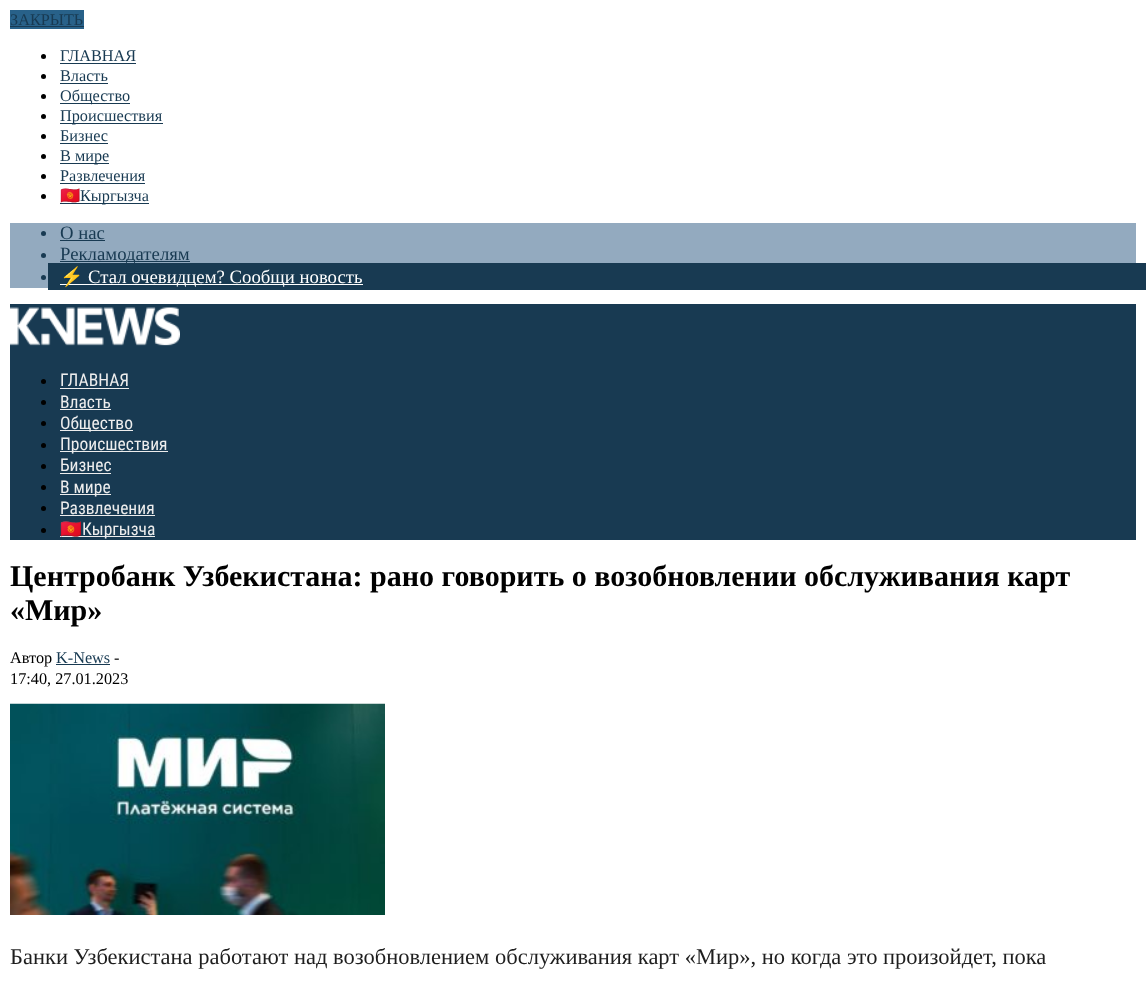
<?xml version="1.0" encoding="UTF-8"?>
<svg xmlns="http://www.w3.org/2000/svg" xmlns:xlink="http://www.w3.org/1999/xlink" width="1146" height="982">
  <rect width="100%" height="100%" fill="#ffffff" />
  <rect x="10" y="10" width="74" height="19" fill="#286189" />
  <rect x="10" y="26" width="74" height="1" fill="#183a52" />
  <circle cx="43.5" cy="56.5" r="2.5" fill="#000000" />
  <rect x="60" y="63" width="76" height="1" fill="#183a52" />
  <circle cx="43.5" cy="76.5" r="2.5" fill="#000000" />
  <rect x="60" y="83" width="48" height="1" fill="#183a52" />
  <circle cx="43.5" cy="96.5" r="2.5" fill="#000000" />
  <rect x="60" y="103" width="70" height="1" fill="#183a52" />
  <circle cx="43.5" cy="116.5" r="2.5" fill="#000000" />
  <rect x="60" y="123" width="103" height="1" fill="#183a52" />
  <circle cx="43.5" cy="136.5" r="2.5" fill="#000000" />
  <rect x="60" y="143" width="48" height="1" fill="#183a52" />
  <circle cx="43.5" cy="156.5" r="2.5" fill="#000000" />
  <rect x="60" y="163" width="49" height="1" fill="#183a52" />
  <circle cx="43.5" cy="176.5" r="2.5" fill="#000000" />
  <rect x="60" y="183" width="85" height="1" fill="#183a52" />
  <circle cx="43.5" cy="196.5" r="2.5" fill="#000000" />
  <rect x="60" y="203" width="89" height="1" fill="#183a52" />
  <rect x="10" y="223" width="1126" height="65" fill="#93aabf" />
  <circle cx="43.5" cy="233.5" r="2.5" fill="#183a52" />
  <rect x="60" y="240" width="45" height="1" fill="#183a52" />
  <circle cx="43.5" cy="255.5" r="2.5" fill="#183a52" />
  <rect x="60" y="261" width="130" height="1" fill="#183a52" />
  <rect x="48" y="263" width="1098" height="27" fill="#183a52" />
  <circle cx="43.5" cy="277.5" r="2.5" fill="#183a52" />
  <rect x="60" y="284" width="303" height="1" fill="#ffffff" />
  <rect x="10" y="304" width="1126" height="236" fill="#183a52" />
  <image x="10" y="307" width="170" height="39" xlink:href="image1.png" />
  <circle cx="43.5" cy="381.5" r="2.5" fill="#000000" />
  <rect x="60" y="388" width="69" height="1" fill="#ededed" />
  <circle cx="43.5" cy="402.5" r="2.5" fill="#000000" />
  <rect x="60" y="409" width="51" height="1" fill="#ededed" />
  <circle cx="43.5" cy="423.5" r="2.5" fill="#000000" />
  <rect x="60" y="430" width="73" height="1" fill="#ededed" />
  <circle cx="43.5" cy="445.5" r="2.5" fill="#000000" />
  <rect x="60" y="451" width="108" height="1" fill="#ededed" />
  <circle cx="43.5" cy="466.5" r="2.5" fill="#000000" />
  <rect x="60" y="473" width="51" height="1" fill="#ededed" />
  <circle cx="43.5" cy="487.5" r="2.5" fill="#000000" />
  <rect x="60" y="494" width="51" height="1" fill="#ededed" />
  <circle cx="43.5" cy="508.5" r="2.5" fill="#000000" />
  <rect x="60" y="515" width="95" height="1" fill="#ededed" />
  <circle cx="43.5" cy="530.5" r="2.5" fill="#000000" />
  <rect x="60" y="536" width="95" height="1" fill="#ededed" />
  <rect x="56" y="664" width="54" height="1" fill="#183a52" />
  <image x="10" y="703" width="375" height="212" xlink:href="image2.png" />
  <text x="10" y="25" style="font-family: Liberation Serif; font-size: 16.25px; fill: #183a52">ЗАКРЫТЬ</text>
  <text x="60" y="61" style="font-family: Liberation Serif; font-size: 16.25px; fill: #183a52">ГЛАВНАЯ</text>
  <text x="60" y="81" style="font-family: Liberation Serif; font-size: 16.25px; fill: #183a52">Bласть</text>
  <text x="60" y="101" style="font-family: Liberation Serif; font-size: 16.25px; fill: #183a52">Общество</text>
  <text x="60" y="121" style="font-family: Liberation Serif; font-size: 16.25px; fill: #183a52">Происшествия</text>
  <text x="60" y="141" style="font-family: Liberation Serif; font-size: 16.25px; fill: #183a52">Бизнес</text>
  <text x="60" y="161" style="font-family: Liberation Serif; font-size: 16.25px; fill: #183a52">В мире</text>
  <text x="60" y="181" style="font-family: Liberation Serif; font-size: 16.25px; fill: #183a52">Развлечения</text>
  <text x="60" y="201" style="font-family: Noto Color Emoji; font-size: 16.25px; fill: #183a52">🇰🇬</text>
  <text x="80" y="201" style="font-family: Liberation Serif; font-size: 16.25px; fill: #183a52">Кыргызча</text>
  <text x="60" y="239" style="font-family: Liberation Serif; font-size: 18.75px; fill: #183a52">О нас</text>
  <text x="60" y="260" style="font-family: Liberation Serif; font-size: 18.75px; fill: #183a52">Рекламодателям</text>
  <text x="60" y="283" style="font-family: Noto Color Emoji; font-size: 18.75px; fill: #ffffff">⚡</text>
  <text x="88" y="283" style="font-family: Liberation Serif; font-size: 18.75px; fill: #ffffff">Стал очевидцем? Сообщи новость</text>
  <text x="60" y="386" style="font-family: Roboto Condensed; font-size: 17.5px; fill: #ededed">ГЛАВНАЯ</text>
  <text x="60" y="408" style="font-family: Roboto Condensed; font-size: 17.5px; fill: #ededed">Bласть</text>
  <text x="60" y="429" style="font-family: Roboto Condensed; font-size: 17.5px; fill: #ededed">Общество</text>
  <text x="60" y="450" style="font-family: Roboto Condensed; font-size: 17.5px; fill: #ededed">Происшествия</text>
  <text x="60" y="471" style="font-family: Roboto Condensed; font-size: 17.5px; fill: #ededed">Бизнес</text>
  <text x="60" y="493" style="font-family: Roboto Condensed; font-size: 17.5px; fill: #ededed">В мире</text>
  <text x="60" y="514" style="font-family: Roboto Condensed; font-size: 17.5px; fill: #ededed">Развлечения</text>
  <text x="60" y="535" style="font-family: Noto Color Emoji; font-size: 17.5px; fill: #ededed">🇰🇬</text>
  <text x="82" y="535" style="font-family: Roboto Condensed; font-size: 17.5px; fill: #ededed">Кыргызча</text>
  <text x="10" y="586" style="font-family: Liberation Serif; font-size: 30px; font-weight: bold; fill: #000000">Центробанк Узбекистана: рано говорить о возобновлении обслуживания карт</text>
  <text x="10" y="620" style="font-family: Liberation Serif; font-size: 30px; font-weight: bold; fill: #000000">«Мир»</text>
  <text x="10" y="663" style="font-family: Liberation Serif; font-size: 16.25px; fill: #000000">Автор</text>
  <text x="56" y="663" style="font-family: Liberation Serif; font-size: 16.25px; fill: #183a52">K-News</text>
  <text x="114" y="663" style="font-family: Liberation Serif; font-size: 16.25px; fill: #000000">-</text>
  <text x="10" y="684" style="font-family: Liberation Serif; font-size: 16.25px; fill: #000000">17:40, 27.01.2023</text>
  <text x="10" y="964" style="font-family: Liberation Serif; font-size: 22.5px; fill: #1e1e1e">Банки Узбекистана работают над возобновлением обслуживания карт «Мир», но когда это произойдет, пока</text>
</svg>
